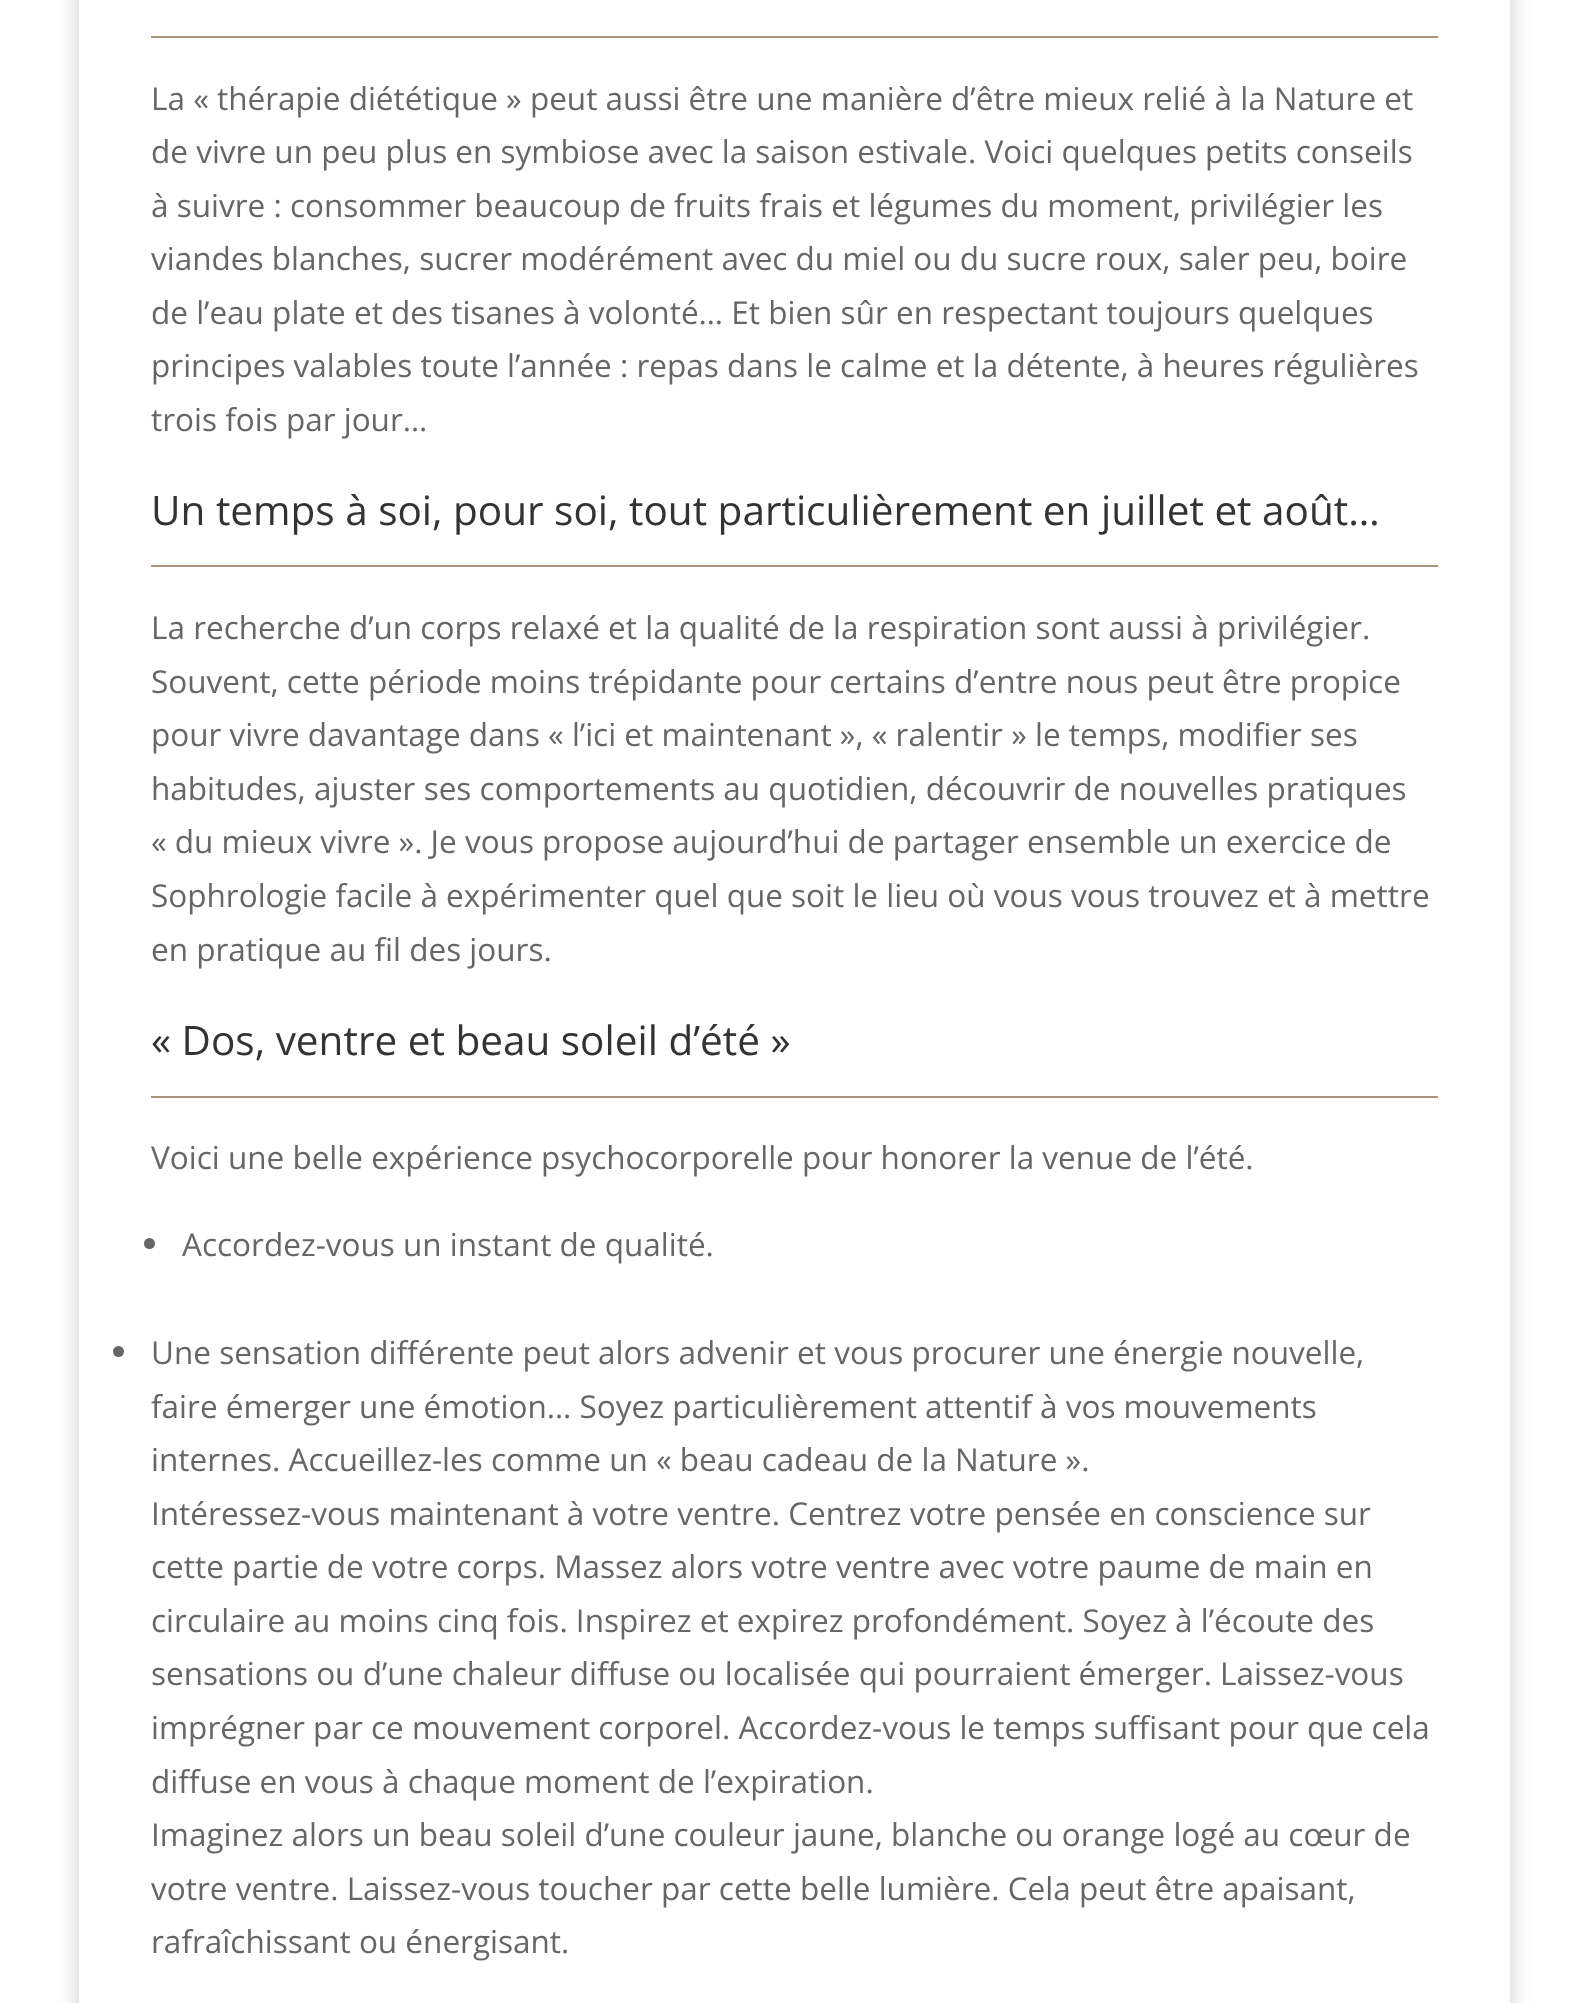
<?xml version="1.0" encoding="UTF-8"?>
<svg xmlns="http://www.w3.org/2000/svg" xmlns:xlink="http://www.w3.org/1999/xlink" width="1588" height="2003">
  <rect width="100%" height="100%" fill="#ffffff" />
  <rect x="79" y="-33" width="1431" height="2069" fill="#000000" fill-opacity="0.2" filter="blur(11px)" />
  <rect x="79" width="1431" height="2003" fill="#ffffff" />
  <rect x="151" y="36" width="1287" height="2" fill="#ab9279" />
  <rect x="151" y="565" width="1287" height="2" fill="#ab9279" />
  <rect x="151" y="1096" width="1287" height="2" fill="#ab9279" />
  <circle cx="149.5" cy="1243.5" r="5.5" fill="#666666" />
  <circle cx="118.5" cy="1351.5" r="5.5" fill="#666666" />
  <text x="151" y="110" style="font-family: Open Sans; font-size: 31.5px; fill: #666666">La « thérapie diététique » peut aussi être une manière d’être mieux relié à la Nature et</text>
  <text x="151" y="163" style="font-family: Open Sans; font-size: 31.5px; fill: #666666">de vivre un peu plus en symbiose avec la saison estivale. Voici quelques petits conseils</text>
  <text x="151" y="217" style="font-family: Open Sans; font-size: 31.5px; fill: #666666">à suivre : consommer beaucoup de fruits frais et légumes du moment, privilégier les</text>
  <text x="151" y="270" style="font-family: Open Sans; font-size: 31.5px; fill: #666666">viandes blanches, sucrer modérément avec du miel ou du sucre roux, saler peu, boire</text>
  <text x="151" y="324" style="font-family: Open Sans; font-size: 31.5px; fill: #666666">de l’eau plate et des tisanes à volonté… Et bien sûr en respectant toujours quelques</text>
  <text x="151" y="377" style="font-family: Open Sans; font-size: 31.5px; fill: #666666">principes valables toute l’année : repas dans le calme et la détente, à heures régulières</text>
  <text x="151" y="431" style="font-family: Open Sans; font-size: 31.5px; fill: #666666">trois fois par jour…</text>
  <text x="151" y="525" style="font-family: Open Sans; font-size: 40.5px; fill: #333333">Un temps à soi, pour soi, tout particulièrement en juillet et août…</text>
  <text x="151" y="639" style="font-family: Open Sans; font-size: 31.5px; fill: #666666">La recherche d’un corps relaxé et la qualité de la respiration sont aussi à privilégier.</text>
  <text x="151" y="693" style="font-family: Open Sans; font-size: 31.5px; fill: #666666">Souvent, cette période moins trépidante pour certains d’entre nous peut être propice</text>
  <text x="151" y="746" style="font-family: Open Sans; font-size: 31.5px; fill: #666666">pour vivre davantage dans « l’ici et maintenant », « ralentir » le temps, modifier ses</text>
  <text x="151" y="800" style="font-family: Open Sans; font-size: 31.5px; fill: #666666">habitudes, ajuster ses comportements au quotidien, découvrir de nouvelles pratiques</text>
  <text x="151" y="853" style="font-family: Open Sans; font-size: 31.5px; fill: #666666">« du mieux vivre ». Je vous propose aujourd’hui de partager ensemble un exercice de</text>
  <text x="151" y="907" style="font-family: Open Sans; font-size: 31.5px; fill: #666666">Sophrologie facile à expérimenter quel que soit le lieu où vous vous trouvez et à mettre</text>
  <text x="151" y="961" style="font-family: Open Sans; font-size: 31.5px; fill: #666666">en pratique au fil des jours.</text>
  <text x="151" y="1055" style="font-family: Open Sans; font-size: 40.5px; fill: #333333">« Dos, ventre et beau soleil d’été »</text>
  <text x="151" y="1169" style="font-family: Open Sans; font-size: 31.5px; fill: #666666">Voici une belle expérience psychocorporelle pour honorer la venue de l’été.</text>
  <text x="182" y="1256" style="font-family: Open Sans; font-size: 31.5px; fill: #666666">Accordez-vous un instant de qualité.</text>
  <text x="151" y="1364" style="font-family: Open Sans; font-size: 31.5px; fill: #666666">Une sensation différente peut alors advenir et vous procurer une énergie nouvelle,</text>
  <text x="151" y="1418" style="font-family: Open Sans; font-size: 31.5px; fill: #666666">faire émerger une émotion… Soyez particulièrement attentif à vos mouvements</text>
  <text x="151" y="1471" style="font-family: Open Sans; font-size: 31.5px; fill: #666666">internes. Accueillez-les comme un « beau cadeau de la Nature ».</text>
  <text x="151" y="1525" style="font-family: Open Sans; font-size: 31.5px; fill: #666666">Intéressez-vous maintenant à votre ventre. Centrez votre pensée en conscience sur</text>
  <text x="151" y="1578" style="font-family: Open Sans; font-size: 31.5px; fill: #666666">cette partie de votre corps. Massez alors votre ventre avec votre paume de main en</text>
  <text x="151" y="1632" style="font-family: Open Sans; font-size: 31.5px; fill: #666666">circulaire au moins cinq fois. Inspirez et expirez profondément. Soyez à l’écoute des</text>
  <text x="151" y="1685" style="font-family: Open Sans; font-size: 31.5px; fill: #666666">sensations ou d’une chaleur diffuse ou localisée qui pourraient émerger. Laissez-vous</text>
  <text x="151" y="1739" style="font-family: Open Sans; font-size: 31.5px; fill: #666666">imprégner par ce mouvement corporel. Accordez-vous le temps suffisant pour que cela</text>
  <text x="151" y="1793" style="font-family: Open Sans; font-size: 31.5px; fill: #666666">diffuse en vous à chaque moment de l’expiration.</text>
  <text x="151" y="1846" style="font-family: Open Sans; font-size: 31.5px; fill: #666666">Imaginez alors un beau soleil d’une couleur jaune, blanche ou orange logé au cœur de</text>
  <text x="151" y="1900" style="font-family: Open Sans; font-size: 31.5px; fill: #666666">votre ventre. Laissez-vous toucher par cette belle lumière. Cela peut être apaisant,</text>
  <text x="151" y="1953" style="font-family: Open Sans; font-size: 31.5px; fill: #666666">rafraîchissant ou énergisant.</text>
</svg>
